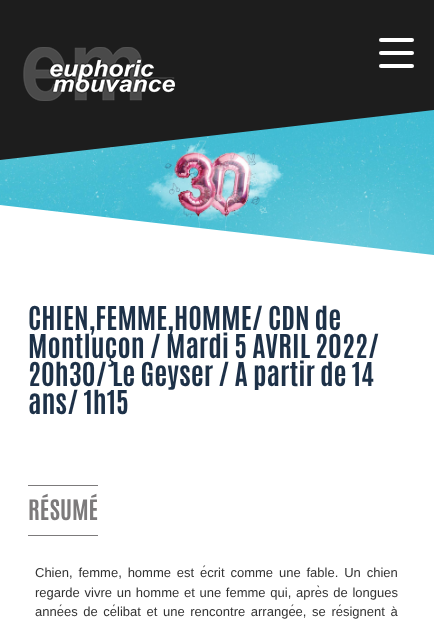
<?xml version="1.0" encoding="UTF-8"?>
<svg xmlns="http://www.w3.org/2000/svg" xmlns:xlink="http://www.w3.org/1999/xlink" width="434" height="633">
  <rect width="100%" height="100%" fill="#ffffff" />
  <rect width="434" height="110" fill="#1d1d1d" />
  <image x="23" y="47" width="152" height="54" xlink:href="image1.png" />
  <rect x="379" y="38" width="35" height="4" rx="2" fill="#ffffff" />
  <rect x="379" y="51" width="35" height="4" rx="2" fill="#ffffff" />
  <rect x="379" y="64" width="35" height="4" rx="2" fill="#ffffff" />
  <image x="0" y="110" width="434" height="145" xlink:href="image2.png" />
  <path d="M 0 160 v -50 h 434 z" fill="#1d1d1d" />
  <path d="M 0 255 v -50 l 434 50 z" fill="#ffffff" />
  <rect x="28" y="485" width="70" height="1" fill="#7c7a7b" />
  <rect x="28" y="535" width="70" height="1" fill="#7c7a7b" />
  <text x="28" y="330" style="font-family: Antonio; font-size: 28px; font-weight: bold; fill: #1d3148">CHIEN,FEMME,HOMME/ CDN de</text>
  <text x="28" y="358" style="font-family: Antonio; font-size: 28px; font-weight: bold; fill: #1d3148">Montluçon / Mardi 5 AVRIL 2022/</text>
  <text x="28" y="386" style="font-family: Antonio; font-size: 28px; font-weight: bold; fill: #1d3148">20h30/ Le Geyser / A partir de 14</text>
  <text x="28" y="414" style="font-family: Antonio; font-size: 28px; font-weight: bold; fill: #1d3148">ans/ 1h15</text>
  <text x="28" y="520" style="font-family: Antonio; font-size: 24px; font-weight: bold; fill: #7c7a7b">RÉSUMÉ</text>
  <text x="35" y="577" word-spacing="2.25" style="font-family: Liberation Sans; font-size: 13px; fill: #333333">Chien, femme, homme est écrit comme une fable. Un chien</text>
  <text x="35" y="597" word-spacing="1.1" style="font-family: Liberation Sans; font-size: 13px; fill: #333333">regarde vivre un homme et une femme qui, après de longues</text>
  <text x="35" y="616" word-spacing="2" style="font-family: Liberation Sans; font-size: 13px; fill: #333333">années de célibat et une rencontre arrangée, se résignent à</text>
</svg>
